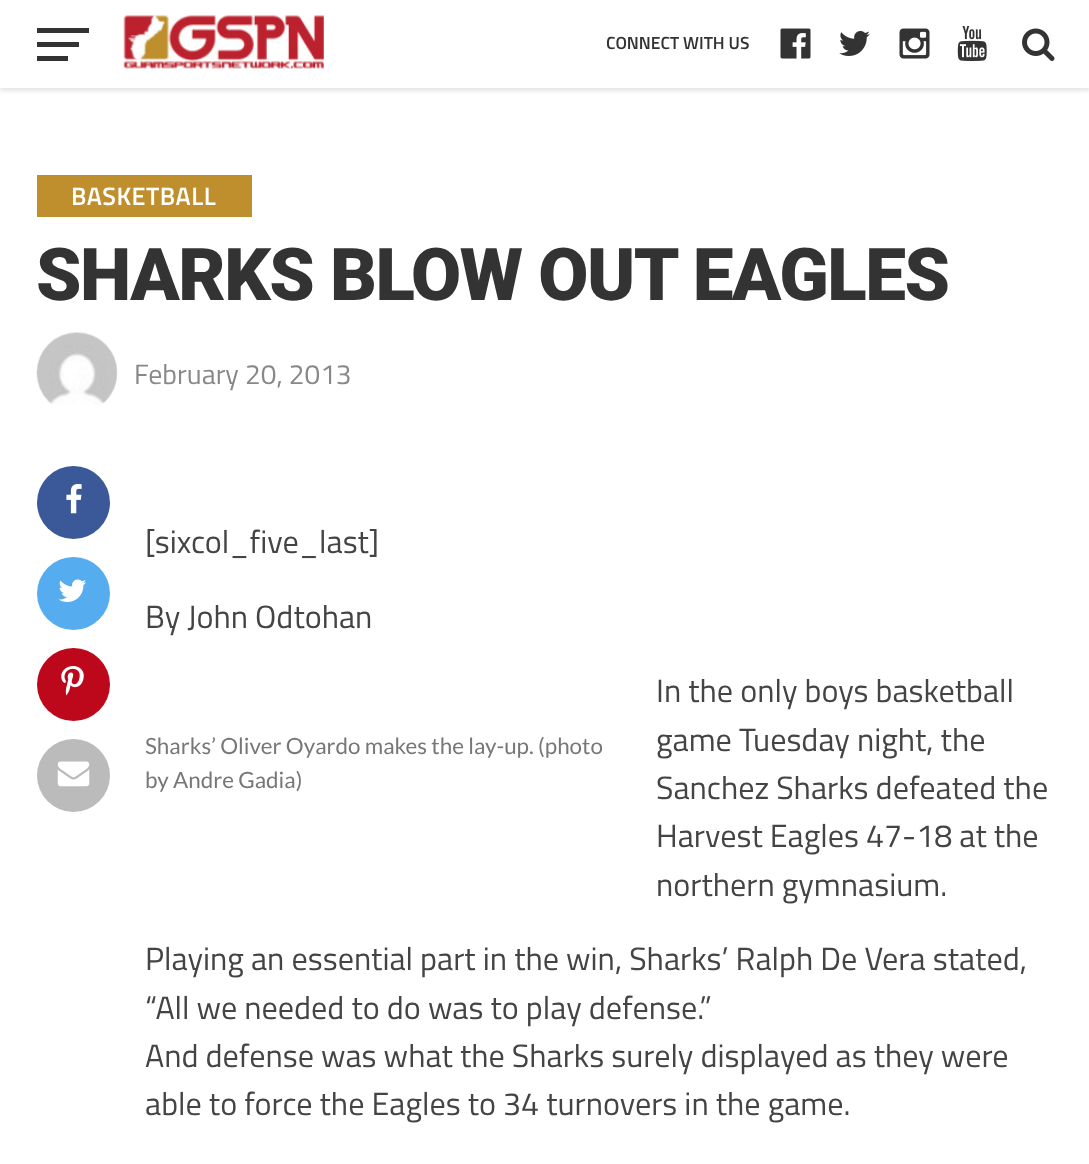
<?xml version="1.0" encoding="UTF-8"?>
<svg xmlns="http://www.w3.org/2000/svg" xmlns:xlink="http://www.w3.org/1999/xlink" width="1089" height="1164">
  <rect width="100%" height="100%" fill="#ffffff" />
  <rect y="4" width="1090" height="87" fill="#000000" fill-opacity="0.1" filter="blur(2px)" />
  <rect y="1" width="1089" height="87" fill="#ffffff" />
  <rect x="37" y="28" width="52" height="5" fill="#333333" />
  <rect x="37" y="42" width="42" height="5" fill="#333333" />
  <rect x="37" y="56" width="31" height="5" fill="#333333" />
  <image x="123" y="15" width="201" height="54" xlink:href="image1.png" />
  <image x="780" y="28" width="31" height="31" xlink:href="image2.png" />
  <image x="839" y="31" width="31" height="25" xlink:href="image3.png" />
  <image x="899" y="28" width="31" height="31" xlink:href="image4.png" />
  <image x="957" y="26" width="30" height="35" xlink:href="image5.png" />
  <image x="1022" y="28" width="33" height="33" xlink:href="image6.png" />
  <rect x="37" y="175" width="215" height="42" fill="#bf8f2d" />
  <image x="36" y="332" width="82" height="73" xlink:href="image7.png" />
  <circle cx="73.5" cy="502.5" r="36.5" fill="#3b5998" />
  <image x="66" y="484" width="16" height="30" xlink:href="image8.png" />
  <circle cx="73.5" cy="593.5" r="36.5" fill="#55acee" />
  <image x="58" y="579" width="28" height="23" xlink:href="image9.png" />
  <circle cx="73.5" cy="684.5" r="36.5" fill="#bd081c" />
  <image x="61" y="666" width="23" height="30" xlink:href="image10.png" />
  <circle cx="73.5" cy="775.5" r="36.5" fill="#bbbbbb" />
  <image x="57" y="761" width="33" height="26" xlink:href="image11.png" />
  <text x="606" y="49" style="font-family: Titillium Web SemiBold; font-size: 17.5px; font-weight: 600; fill: #333333">CONNECT WITH US</text>
  <text x="71" y="205" style="font-family: Titillium Web SemiBold; font-size: 25.25px; font-weight: 600; letter-spacing: 0.5px; fill: #ffffff">BASKETBALL</text>
  <text x="36" y="300" style="font-family: Roboto; font-size: 72.75px; font-weight: 900; letter-spacing: -1.5px; fill: #333333">SHARKS BLOW OUT EAGLES</text>
  <text x="134" y="384" style="font-family: Titillium Web; font-size: 28px; fill: #888888">February 20, 2013</text>
  <text x="145" y="553" style="font-family: Titillium Web; font-size: 32.2px; fill: #444444">[sixcol_five_last]</text>
  <text x="145" y="628" style="font-family: Titillium Web; font-size: 32.2px; fill: #444444">By John Odtohan</text>
  <text x="145" y="754" style="font-family: Lato; font-size: 22.4px; fill: #777777">Sharks’ Oliver Oyardo makes the lay-up. (photo</text>
  <text x="145" y="788" style="font-family: Lato; font-size: 22.4px; fill: #777777">by Andre Gadia)</text>
  <text x="656" y="702" style="font-family: Titillium Web; font-size: 32.2px; fill: #444444">In the only boys basketball</text>
  <text x="656" y="751" style="font-family: Titillium Web; font-size: 32.2px; fill: #444444">game Tuesday night, the</text>
  <text x="656" y="799" style="font-family: Titillium Web; font-size: 32.2px; fill: #444444">Sanchez Sharks defeated the</text>
  <text x="656" y="847" style="font-family: Titillium Web; font-size: 32.2px; fill: #444444">Harvest Eagles 47-18 at the</text>
  <text x="656" y="896" style="font-family: Titillium Web; font-size: 32.2px; fill: #444444">northern gymnasium.</text>
  <text x="145" y="970" style="font-family: Titillium Web; font-size: 32.2px; fill: #444444">Playing an essential part in the win, Sharks’ Ralph De Vera stated,</text>
  <text x="145" y="1019" style="font-family: Titillium Web; font-size: 32.2px; fill: #444444">“All we needed to do was to play defense.”</text>
  <text x="145" y="1067" style="font-family: Titillium Web; font-size: 32.2px; fill: #444444">And defense was what the Sharks surely displayed as they were</text>
  <text x="145" y="1115" style="font-family: Titillium Web; font-size: 32.2px; fill: #444444">able to force the Eagles to 34 turnovers in the game.</text>
</svg>
